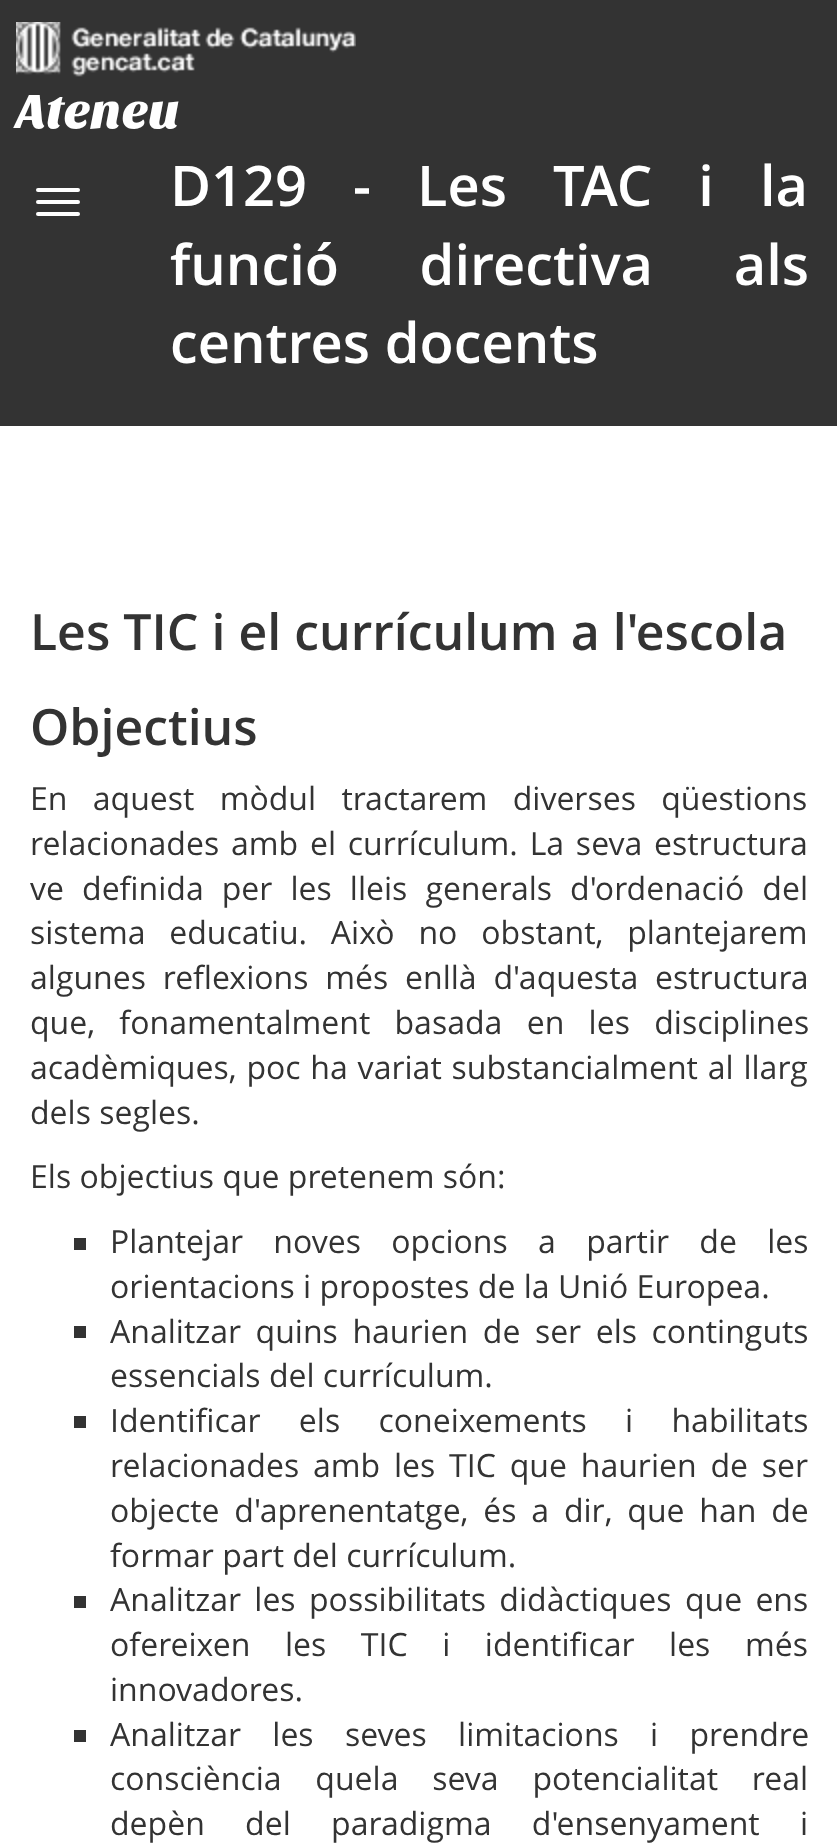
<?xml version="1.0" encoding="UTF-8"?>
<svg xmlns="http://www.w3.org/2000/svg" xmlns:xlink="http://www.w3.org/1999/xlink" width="837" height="1845">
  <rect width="100%" height="100%" fill="#ffffff" />
  <rect width="837" height="426" fill="#333333" />
  <image x="16" y="22" width="340" height="55" xlink:href="image1.png" />
  <rect x="36" y="188" width="44" height="4" rx="2" fill="#ffffff" />
  <rect x="36" y="200" width="44" height="4" rx="2" fill="#ffffff" />
  <rect x="36" y="212" width="44" height="4" rx="2" fill="#ffffff" />
  <rect x="74" y="1238" width="12" height="12" fill="#333333" />
  <rect x="74" y="1326" width="12" height="12" fill="#333333" />
  <rect x="74" y="1416" width="12" height="12" fill="#333333" />
  <rect x="74" y="1596" width="12" height="12" fill="#333333" />
  <rect x="74" y="1730" width="12" height="12" fill="#333333" />
  <text x="16" y="128" style="font-family: Sansita One; font-size: 50px; fill: #ffffff">Ateneu</text>
  <text x="170" y="206" word-spacing="31.5" style="font-family: Open Sans; font-size: 56px; font-weight: 600; fill: #ffffff">D129 - Les TAC i la</text>
  <text x="170" y="285" word-spacing="66" style="font-family: Open Sans; font-size: 56px; font-weight: 600; fill: #ffffff">funció directiva als</text>
  <text x="170" y="363" style="font-family: Open Sans; font-size: 56px; font-weight: 600; fill: #ffffff">centres docents</text>
  <text x="30" y="650" style="font-family: Open Sans; font-size: 50px; font-weight: 600; fill: #333333">Les TIC i el currículum a l'escola</text>
  <text x="30" y="745" style="font-family: Open Sans; font-size: 50px; font-weight: 600; fill: #333333">Objectius</text>
  <text x="30" y="810" word-spacing="17" style="font-family: Open Sans; font-size: 32px; fill: #333333">En aquest mòdul tractarem diverses qüestions</text>
  <text x="30" y="855" word-spacing="3.5" style="font-family: Open Sans; font-size: 32px; fill: #333333">relacionades amb el currículum. La seva estructura</text>
  <text x="30" y="900" word-spacing="9.75" style="font-family: Open Sans; font-size: 32px; fill: #333333">ve definida per les lleis generals d'ordenació del</text>
  <text x="30" y="944" word-spacing="15.5" style="font-family: Open Sans; font-size: 32px; fill: #333333">sistema educatiu. Això no obstant, plantejarem</text>
  <text x="30" y="989" word-spacing="8.5" style="font-family: Open Sans; font-size: 32px; fill: #333333">algunes reflexions més enllà d'aquesta estructura</text>
  <text x="30" y="1034" word-spacing="16" style="font-family: Open Sans; font-size: 32px; fill: #333333">que, fonamentalment basada en les disciplines</text>
  <text x="30" y="1079" word-spacing="1.5" style="font-family: Open Sans; font-size: 32px; fill: #333333">acadèmiques, poc ha variat substancialment al llarg</text>
  <text x="30" y="1124" style="font-family: Open Sans; font-size: 32px; fill: #333333">dels segles.</text>
  <text x="30" y="1188" style="font-family: Open Sans; font-size: 32px; fill: #333333">Els objectius que pretenem són:</text>
  <text x="110" y="1253" word-spacing="22" style="font-family: Open Sans; font-size: 32px; fill: #333333">Plantejar noves opcions a partir de les</text>
  <text x="110" y="1298" style="font-family: Open Sans; font-size: 32px; fill: #333333">orientacions i propostes de la Unió Europea.</text>
  <text x="110" y="1343" word-spacing="6.25" style="font-family: Open Sans; font-size: 32px; fill: #333333">Analitzar quins haurien de ser els continguts</text>
  <text x="110" y="1387" style="font-family: Open Sans; font-size: 32px; fill: #333333">essencials del currículum.</text>
  <text x="110" y="1432" word-spacing="30" style="font-family: Open Sans; font-size: 32px; fill: #333333">Identificar els coneixements i habilitats</text>
  <text x="110" y="1477" word-spacing="5.5" style="font-family: Open Sans; font-size: 32px; fill: #333333">relacionades amb les TIC que haurien de ser</text>
  <text x="110" y="1522" word-spacing="6.5" style="font-family: Open Sans; font-size: 32px; fill: #333333">objecte d'aprenentatge, és a dir, que han de</text>
  <text x="110" y="1567" style="font-family: Open Sans; font-size: 32px; fill: #333333">formar part del currículum.</text>
  <text x="110" y="1611" word-spacing="5" style="font-family: Open Sans; font-size: 32px; fill: #333333">Analitzar les possibilitats didàctiques que ens</text>
  <text x="110" y="1656" word-spacing="26.25" style="font-family: Open Sans; font-size: 32px; fill: #333333">ofereixen les TIC i identificar les més</text>
  <text x="110" y="1701" style="font-family: Open Sans; font-size: 32px; fill: #333333">innovadores.</text>
  <text x="110" y="1746" word-spacing="23" style="font-family: Open Sans; font-size: 32px; fill: #333333">Analitzar les seves limitacions i prendre</text>
  <text x="110" y="1790" word-spacing="25.5" style="font-family: Open Sans; font-size: 32px; fill: #333333">consciència quela seva potencialitat real</text>
  <text x="110" y="1835" word-spacing="32" style="font-family: Open Sans; font-size: 32px; fill: #333333">depèn del paradigma d'ensenyament i</text>
</svg>
